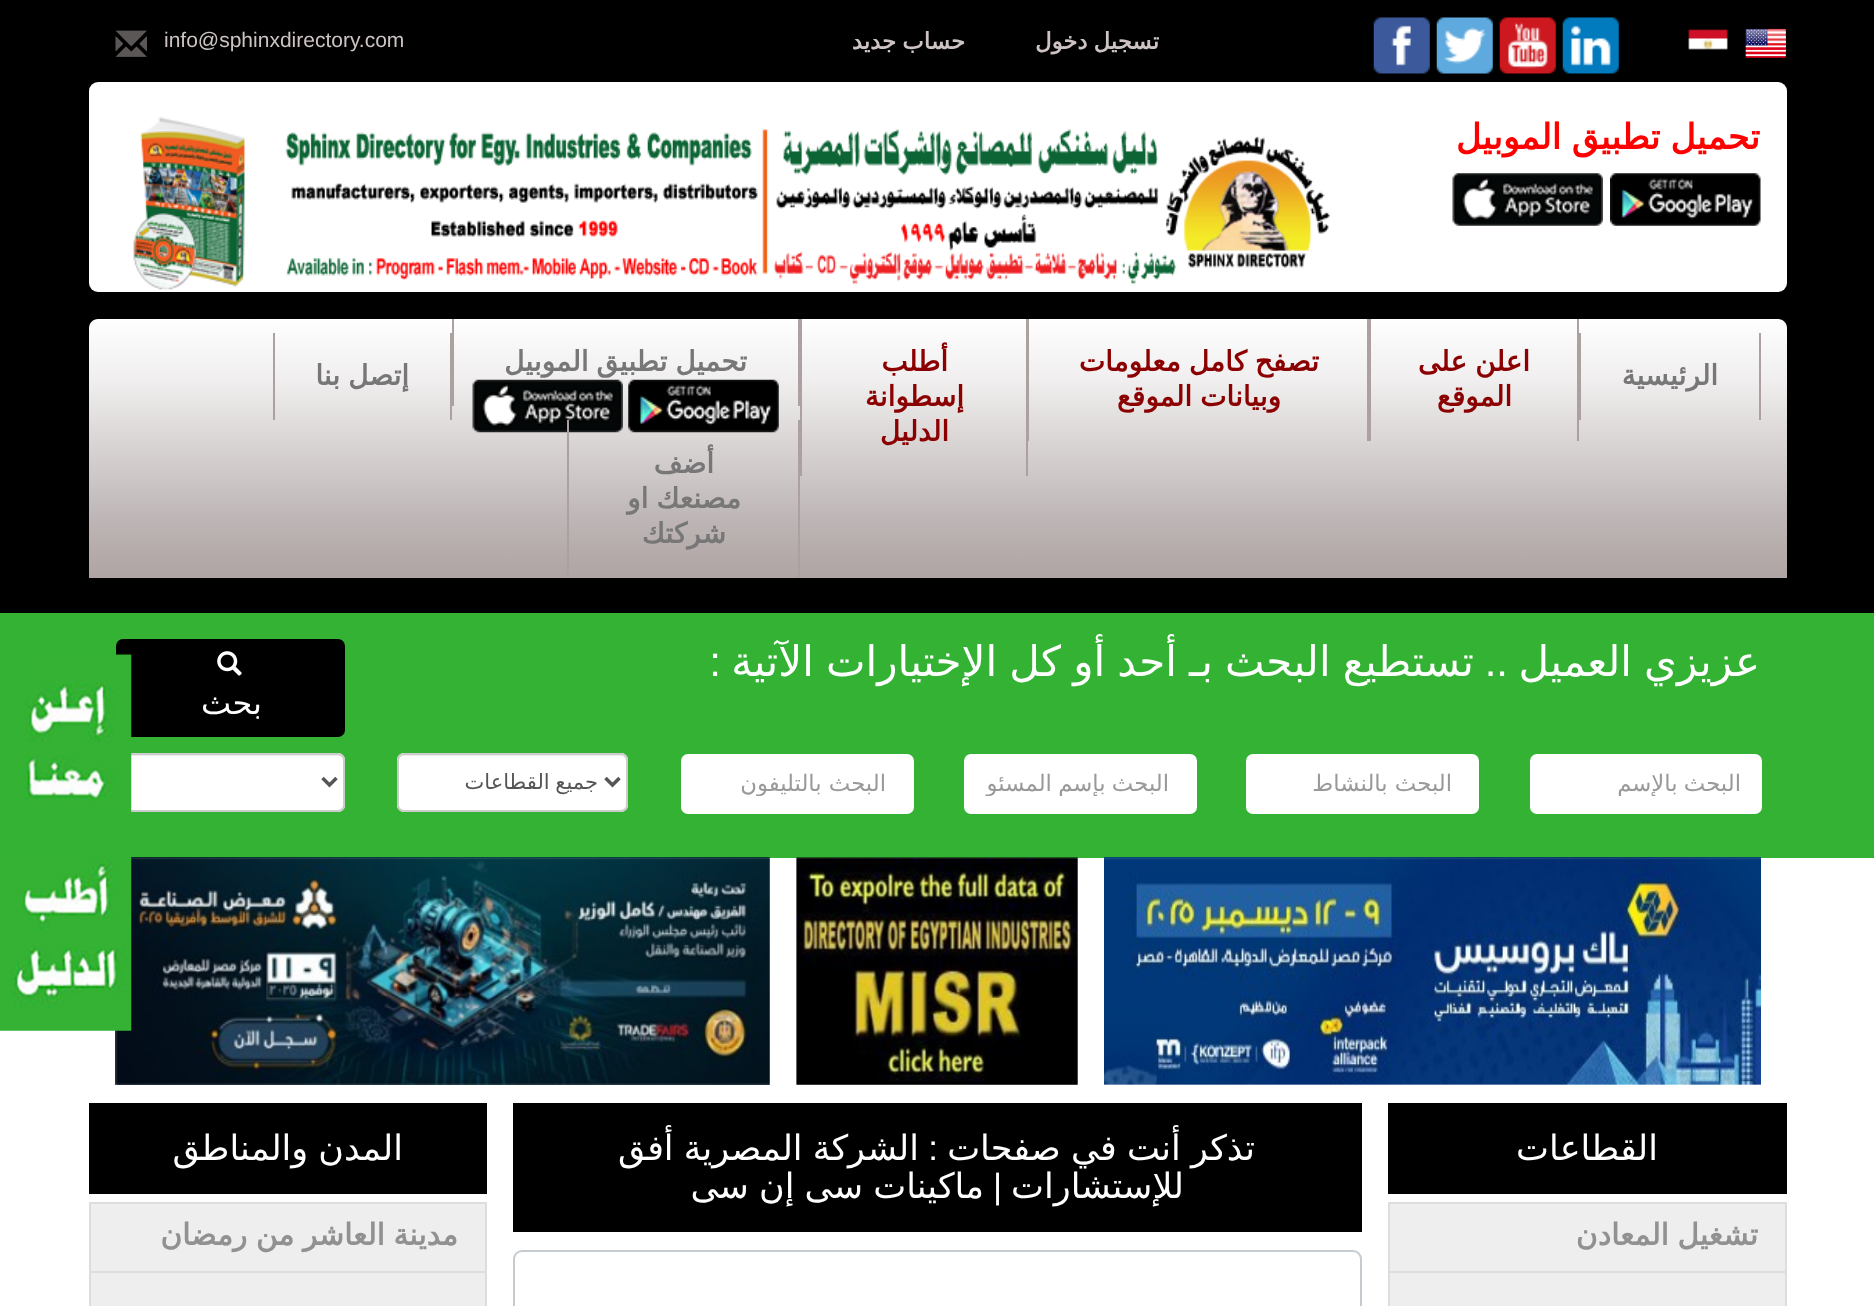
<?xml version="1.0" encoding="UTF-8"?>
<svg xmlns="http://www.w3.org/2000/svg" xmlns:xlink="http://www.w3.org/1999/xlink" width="1874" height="1306">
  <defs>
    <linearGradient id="g1" gradientUnits="userSpaceOnUse" x1="938" y1="318" x2="938" y2="578"><stop offset="0" stop-color="#ffffff" /><stop offset="0.24" stop-color="#f0eeee" /><stop offset="0.77" stop-color="#beb6b6" /><stop offset="0.9" stop-color="#b5abab" /><stop offset="1" stop-color="#b0a5a5" /></linearGradient>
    <clipPath id="clip1"><rect x="1551" y="770" width="190" height="26" /></clipPath>
    <clipPath id="clip2"><rect x="985" y="770" width="191" height="26" /></clipPath>
    <clipPath id="clip3"><rect x="702" y="770" width="191" height="26" /></clipPath>
  </defs>
  <rect width="100%" height="100%" fill="#ffffff" />
  <rect width="1874" height="613" fill="#000000" />
  <image x="1745" y="28" width="41" height="30" xlink:href="image1.png" />
  <image x="1688" y="29" width="40" height="21" xlink:href="image2.png" />
  <image x="1562" y="17" width="57" height="57" xlink:href="image3.png" />
  <image x="1499" y="17" width="57" height="57" xlink:href="image4.png" />
  <image x="1436" y="17" width="57" height="57" xlink:href="image5.png" />
  <image x="1373" y="17" width="57" height="57" xlink:href="image6.png" />
  <image x="115" y="30" width="32" height="27" xlink:href="image7.png" />
  <rect x="89" y="82" width="1698" height="210" rx="9" fill="#ffffff" />
  <image x="1610" y="173" width="151" height="53" xlink:href="image8.png" />
  <image x="1452" y="173" width="151" height="53" xlink:href="image9.png" />
  <image x="133" y="117" width="1197" height="173" xlink:href="image10.png" />
  <path d="M 98 319 h 1680 c 5 0 9 4 9 9 v 250 h -1698 v -250 c 0 -5 4 -9 9 -9 z" fill="url(#g1)" />
  <rect x="1759" y="333" width="2" height="87" fill="#ada0a0" />
  <rect x="1579" y="333" width="2" height="87" fill="#ada0a0" />
  <rect x="1577" y="319" width="2" height="122" fill="#ada0a0" />
  <rect x="1367" y="319" width="4" height="122" fill="#ada0a0" />
  <rect x="1028" y="319" width="1" height="122" fill="#ada0a0" />
  <rect x="1026" y="319" width="2" height="157" fill="#ada0a0" />
  <rect x="800" y="319" width="2" height="157" fill="#ada0a0" />
  <rect x="798" y="319" width="2" height="87" fill="#ada0a0" />
  <rect x="452" y="319" width="2" height="87" fill="#ada0a0" />
  <image x="628" y="379" width="151" height="54" xlink:href="image11.png" />
  <image x="472" y="379" width="151" height="54" xlink:href="image12.png" />
  <rect x="450" y="333" width="2" height="87" fill="#ada0a0" />
  <rect x="273" y="333" width="2" height="87" fill="#ada0a0" />
  <rect x="798" y="420" width="2" height="158" fill="#ada0a0" />
  <rect x="567" y="420" width="2" height="158" fill="#ada0a0" />
  <rect y="613" width="1874" height="245" fill="#34b234" />
  <rect x="116" y="639" width="229" height="98" rx="7" fill="#000000" />
  <image x="217" y="651" width="25" height="25" xlink:href="image13.png" />
  <rect x="1530" y="754" width="232" height="60" rx="7" fill="#ffffff" />
  <rect x="1246" y="754" width="233" height="60" rx="7" fill="#ffffff" />
  <rect x="964" y="754" width="233" height="60" rx="7" fill="#ffffff" />
  <rect x="681" y="754" width="233" height="60" rx="7" fill="#ffffff" />
  <rect x="397" y="753" width="231" height="59" rx="7" fill="#ffffff" />
  <path d="M 404 756 h 217 c 3 0 5 2 5 5 v 47 c 1 -1 1 -2 1 -3 v -46 c 0 -3 -2 -5 -5 -5 h -218 c -3 0 -5 2 -5 5 v 2 c 0 -3 2 -5 5 -5 z" fill="#ececec" />
  <rect x="398" y="754" width="229" height="57" rx="6" fill="none" stroke="#cccccc" stroke-width="2" />
  <path d="M 605.5 778 l 7 7 l 7 -7" fill="none" stroke="#555555" stroke-width="3.5" />
  <rect x="116" y="753" width="229" height="59" rx="7" fill="#ffffff" />
  <path d="M 122 756 h 216 c 3 0 5 2 5 5 c 0 -3 -1 -7 -5 -7 h -217 c -4 1 -4 4 -4 7 c 0 -3 3 -5 5 -5 z" fill="#ececec" />
  <rect x="117" y="754" width="227" height="57" rx="6" fill="none" stroke="#cccccc" stroke-width="2" />
  <path d="M 322.5 778 l 7 7 l 7 -7" fill="none" stroke="#555555" stroke-width="3.5" />
  <image x="25" y="653" width="107" height="159" xlink:href="image14.png" />
  <image x="115" y="857" width="655" height="228" xlink:href="image18.png" />
  <image x="0" y="857" width="132" height="174" xlink:href="image15.png" />
  <image x="1104" y="857" width="657" height="228" xlink:href="image16.png" />
  <image x="796" y="857" width="282" height="228" xlink:href="image17.png" />
  <rect x="1388" y="1103" width="399" height="91" fill="#000000" />
  <rect x="1390" y="1204" width="395" height="67" fill="#eeeeee" />
  <rect x="1388" y="1202" width="399" height="2" fill="#dddddd" />
  <rect x="1785" y="1202" width="2" height="69" fill="#dddddd" />
  <rect x="1388" y="1202" width="2" height="69" fill="#dddddd" />
  <rect x="1390" y="1273" width="395" height="33" fill="#eeeeee" />
  <rect x="1388" y="1271" width="399" height="2" fill="#dddddd" />
  <rect x="1785" y="1271" width="2" height="35" fill="#dddddd" />
  <rect x="1388" y="1271" width="2" height="35" fill="#dddddd" />
  <rect x="513" y="1103" width="849" height="129" fill="#000000" />
  <rect x="514" y="1251" width="847" height="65" rx="8" fill="none" stroke="#c6cbd0" stroke-width="2" />
  <rect x="89" y="1103" width="398" height="91" fill="#000000" />
  <rect x="91" y="1204" width="394" height="67" fill="#eeeeee" />
  <rect x="89" y="1202" width="398" height="2" fill="#dddddd" />
  <rect x="485" y="1202" width="2" height="69" fill="#dddddd" />
  <rect x="89" y="1202" width="2" height="69" fill="#dddddd" />
  <rect x="91" y="1273" width="394" height="33" fill="#eeeeee" />
  <rect x="89" y="1271" width="398" height="2" fill="#dddddd" />
  <rect x="485" y="1271" width="2" height="35" fill="#dddddd" />
  <rect x="89" y="1271" width="2" height="35" fill="#dddddd" />
  <text x="1159" y="49" word-spacing="-1" style="font-family: DejaVu Sans; font-size: 22.75px; font-weight: bold; direction: rtl; fill: #cdc3c3">تسجيل دخول</text>
  <text x="965" y="49" word-spacing="-1" style="font-family: DejaVu Sans; font-size: 22.75px; font-weight: bold; direction: rtl; fill: #cdc3c3">حساب جديد</text>
  <text x="164" y="47" style="font-family: Liberation Sans; font-size: 21px; fill: #cdc3c3">info@sphinxdirectory.com</text>
  <text x="1760" y="149" word-spacing="-1" style="font-family: DejaVu Sans; font-size: 35px; font-weight: bold; direction: rtl; fill: #ff0000">تحميل تطبيق الموبيل</text>
  <text x="1718" y="385" style="font-family: DejaVu Sans; font-size: 28px; font-weight: bold; direction: rtl; fill: #777777">الرئيسية</text>
  <text x="1530" y="371" word-spacing="-1" style="font-family: DejaVu Sans; font-size: 28px; font-weight: bold; direction: rtl; fill: #8b0000">اعلن على</text>
  <text x="1512" y="406" style="font-family: DejaVu Sans; font-size: 28px; font-weight: bold; direction: rtl; fill: #8b0000">الموقع</text>
  <text x="1319" y="371" word-spacing="-1" style="font-family: DejaVu Sans; font-size: 28px; font-weight: bold; direction: rtl; fill: #8b0000">تصفح كامل معلومات</text>
  <text x="1281" y="406" word-spacing="-1" style="font-family: DejaVu Sans; font-size: 28px; font-weight: bold; direction: rtl; fill: #8b0000">وبيانات الموقع</text>
  <text x="948" y="371" style="font-family: DejaVu Sans; font-size: 28px; font-weight: bold; direction: rtl; fill: #8b0000">أطلب</text>
  <text x="964" y="406" style="font-family: DejaVu Sans; font-size: 28px; font-weight: bold; direction: rtl; fill: #8b0000">إسطوانة</text>
  <text x="949" y="441" style="font-family: DejaVu Sans; font-size: 28px; font-weight: bold; direction: rtl; fill: #8b0000">الدليل</text>
  <text x="747" y="371" word-spacing="-1" style="font-family: DejaVu Sans; font-size: 28px; font-weight: bold; direction: rtl; fill: #777777">تحميل تطبيق الموبيل</text>
  <text x="409" y="385" word-spacing="-1" style="font-family: DejaVu Sans; font-size: 28px; font-weight: bold; direction: rtl; fill: #777777">إتصل بنا</text>
  <text x="714" y="473" style="font-family: DejaVu Sans; font-size: 28px; font-weight: bold; direction: rtl; fill: #777777">أضف</text>
  <text x="741" y="508" word-spacing="-1" style="font-family: DejaVu Sans; font-size: 28px; font-weight: bold; direction: rtl; fill: #777777">مصنعك او</text>
  <text x="726" y="543" style="font-family: DejaVu Sans; font-size: 28px; font-weight: bold; direction: rtl; fill: #777777">شركتك</text>
  <text x="1760" y="676" word-spacing="-1.25" style="font-family: DejaVu Sans; font-size: 42px; direction: rtl; fill: #ffffff">عزيزي العميل</text>
  <text x="1508" y="676" style="font-family: Liberation Sans; font-size: 42px; direction: rtl; fill: #ffffff">..</text>
  <text x="1474" y="676" word-spacing="-1.25" style="font-family: DejaVu Sans; font-size: 42px; direction: rtl; fill: #ffffff">تستطيع البحث بـ أحد أو كل الإختيارات الآتية</text>
  <text x="721" y="676" style="font-family: Liberation Sans; font-size: 42px; direction: rtl; fill: #ffffff">:</text>
  <text x="262" y="714" style="font-family: DejaVu Sans; font-size: 32px; direction: rtl; fill: #ffffff">بحث</text>
  <g clip-path="url(#clip1)">
    <text x="1741" y="791" word-spacing="-1" style="font-family: DejaVu Sans; font-size: 22.75px; direction: rtl; fill: #999999">البحث بالإسم</text>
  </g>
  <text x="1452" y="791" style="font-family: DejaVu Sans; font-size: 22.75px; direction: rtl; fill: #999999">البحث بالنشاط</text>
  <g clip-path="url(#clip2)">
    <text x="1169" y="791" word-spacing="-1" style="font-family: DejaVu Sans; font-size: 22.75px; direction: rtl; fill: #999999">البحث بإسم المسئول</text>
  </g>
  <g clip-path="url(#clip3)">
    <text x="886" y="791" style="font-family: DejaVu Sans; font-size: 22.75px; direction: rtl; fill: #999999">البحث بالتليفون</text>
  </g>
  <text x="598" y="789" word-spacing="-1" style="font-family: DejaVu Sans; font-size: 21px; direction: rtl; fill: #555555">جميع القطاعات</text>
  <text x="1658" y="1160" style="font-family: DejaVu Sans; font-size: 35px; direction: rtl; fill: #ffffff">القطاعات</text>
  <text x="1758" y="1245" word-spacing="-1" style="font-family: DejaVu Sans; font-size: 29.75px; font-weight: bold; direction: rtl; fill: #919191">تشغيل المعادن</text>
  <text x="1255" y="1160" word-spacing="-1" style="font-family: DejaVu Sans; font-size: 35px; direction: rtl; fill: #ffffff">تذكر أنت في صفحات</text>
  <text x="938" y="1160" style="font-family: Liberation Sans; font-size: 35px; direction: rtl; fill: #ffffff">:</text>
  <text x="919" y="1160" word-spacing="-1" style="font-family: DejaVu Sans; font-size: 35px; direction: rtl; fill: #ffffff">الشركة المصرية أفق</text>
  <text x="1184" y="1198" style="font-family: DejaVu Sans; font-size: 35px; direction: rtl; fill: #ffffff">للإستشارات</text>
  <text x="1002" y="1198" style="font-family: Liberation Sans; font-size: 35px; direction: rtl; fill: #ffffff">|</text>
  <text x="984" y="1198" word-spacing="-1" style="font-family: DejaVu Sans; font-size: 35px; direction: rtl; fill: #ffffff">ماكينات سى إن سى</text>
  <text x="403" y="1160" word-spacing="-1" style="font-family: DejaVu Sans; font-size: 35px; direction: rtl; fill: #ffffff">المدن والمناطق</text>
  <text x="458" y="1245" word-spacing="-1" style="font-family: DejaVu Sans; font-size: 29.75px; font-weight: bold; direction: rtl; fill: #919191">مدينة العاشر من رمضان</text>
</svg>
